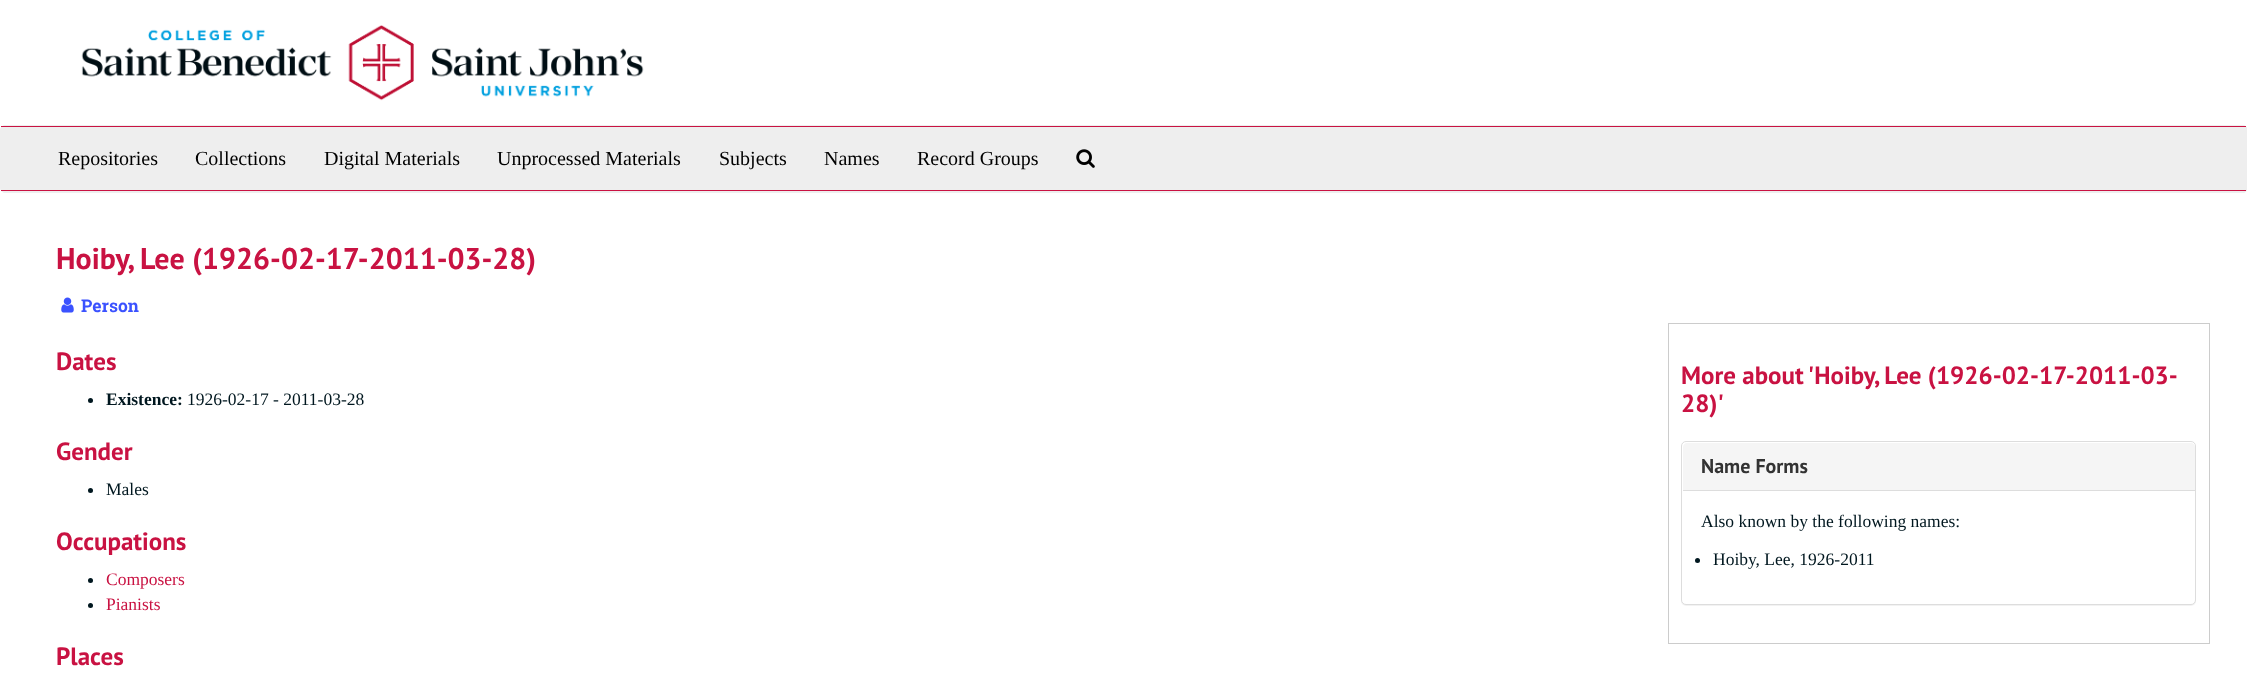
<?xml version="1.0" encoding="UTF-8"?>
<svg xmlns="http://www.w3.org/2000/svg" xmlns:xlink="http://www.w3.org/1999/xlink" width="2247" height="689">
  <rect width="100%" height="100%" fill="#ffffff" />
  <image x="81" y="25" width="563" height="76" xlink:href="image1.png" />
  <rect x="0.5" y="125.5" width="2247" height="67" rx="4.5" fill="#eeeeee" stroke="#eeeeee" />
  <rect x="1" y="126" width="2245" height="1" fill="#c91242" />
  <rect x="1" y="190" width="2245" height="1" fill="#c91242" />
  <image x="1076" y="149" width="19" height="19" xlink:href="image2.png" />
  <image x="61" y="297" width="13" height="16" xlink:href="image3.png" />
  <circle cx="90.5" cy="400.5" r="2.5" fill="#00171f" />
  <circle cx="90.5" cy="490.5" r="2.5" fill="#00171f" />
  <circle cx="90.5" cy="580.5" r="2.5" fill="#00171f" />
  <circle cx="90.5" cy="605.5" r="2.5" fill="#00171f" />
  <rect x="1668.5" y="323.5" width="541" height="320" fill="none" stroke="#cccccc" />
  <rect x="1681" y="443" width="515" height="163" rx="5" fill="#000000" fill-opacity="0.05" filter="blur(0.5px)" />
  <rect x="1681.5" y="441.5" width="514" height="163" rx="4.5" fill="#ffffff" stroke="#dddddd" />
  <path d="M 1687 443 h 504 c 2 0 4 2 4 4 v 43 h -512 v -43 c 0 -2 2 -4 4 -4 z" fill="#f5f5f5" />
  <rect x="1683" y="490" width="512" height="1" fill="#dddddd" />
  <circle cx="1697.5" cy="560.5" r="2.5" fill="#00171f" />
  <text x="58" y="165" style="font-family: Liberation Serif; font-size: 20px; fill: #000000">Repositories</text>
  <text x="195" y="165" style="font-family: Liberation Serif; font-size: 20px; fill: #000000">Collections</text>
  <text x="324" y="165" style="font-family: Liberation Serif; font-size: 20px; fill: #000000">Digital Materials</text>
  <text x="497" y="165" style="font-family: Liberation Serif; font-size: 20px; fill: #000000">Unprocessed Materials</text>
  <text x="719" y="165" style="font-family: Liberation Serif; font-size: 20px; fill: #000000">Subjects</text>
  <text x="824" y="165" style="font-family: Liberation Serif; font-size: 20px; fill: #000000">Names</text>
  <text x="917" y="165" style="font-family: Liberation Serif; font-size: 20px; fill: #000000">Record Groups</text>
  <text x="56" y="269" style="font-family: PT Sans; font-size: 30px; font-weight: bold; fill: #c91242">Hoiby, Lee (1926-02-17-2011-03-28)</text>
  <text x="81" y="312" style="font-family: Roboto Slab; font-size: 17.5px; font-weight: bold; fill: #3b52ff">Person</text>
  <text x="56" y="370" style="font-family: PT Sans; font-size: 25px; font-weight: bold; fill: #c91242">Dates</text>
  <text x="106" y="405" style="font-family: Liberation Serif; font-size: 17.5px; font-weight: bold; fill: #00171f">Existence:</text>
  <text x="187" y="405" style="font-family: Liberation Serif; font-size: 17.5px; fill: #00171f">1926-02-17 - 2011-03-28</text>
  <text x="56" y="460" style="font-family: PT Sans; font-size: 25px; font-weight: bold; fill: #c91242">Gender</text>
  <text x="106" y="495" style="font-family: Liberation Serif; font-size: 17.5px; fill: #00171f">Males</text>
  <text x="56" y="550" style="font-family: PT Sans; font-size: 25px; font-weight: bold; fill: #c91242">Occupations</text>
  <text x="106" y="585" style="font-family: Liberation Serif; font-size: 17.5px; fill: #c91242">Composers</text>
  <text x="106" y="610" style="font-family: Liberation Serif; font-size: 17.5px; fill: #c91242">Pianists</text>
  <text x="56" y="665" style="font-family: PT Sans; font-size: 25px; font-weight: bold; fill: #c91242">Places</text>
  <text x="1681" y="384" style="font-family: PT Sans; font-size: 25px; font-weight: bold; fill: #c91242">More about 'Hoiby, Lee (1926-02-17-2011-03-</text>
  <text x="1681" y="412" style="font-family: PT Sans; font-size: 25px; font-weight: bold; fill: #c91242">28)'</text>
  <text x="1701" y="473" style="font-family: PT Sans; font-size: 20px; font-weight: bold; fill: #333333">Name Forms</text>
  <text x="1701" y="527" style="font-family: Liberation Serif; font-size: 17.5px; fill: #00171f">Also known by the following names:</text>
  <text x="1713" y="565" style="font-family: Liberation Serif; font-size: 17.5px; fill: #00171f">Hoiby, Lee, 1926-2011</text>
</svg>
